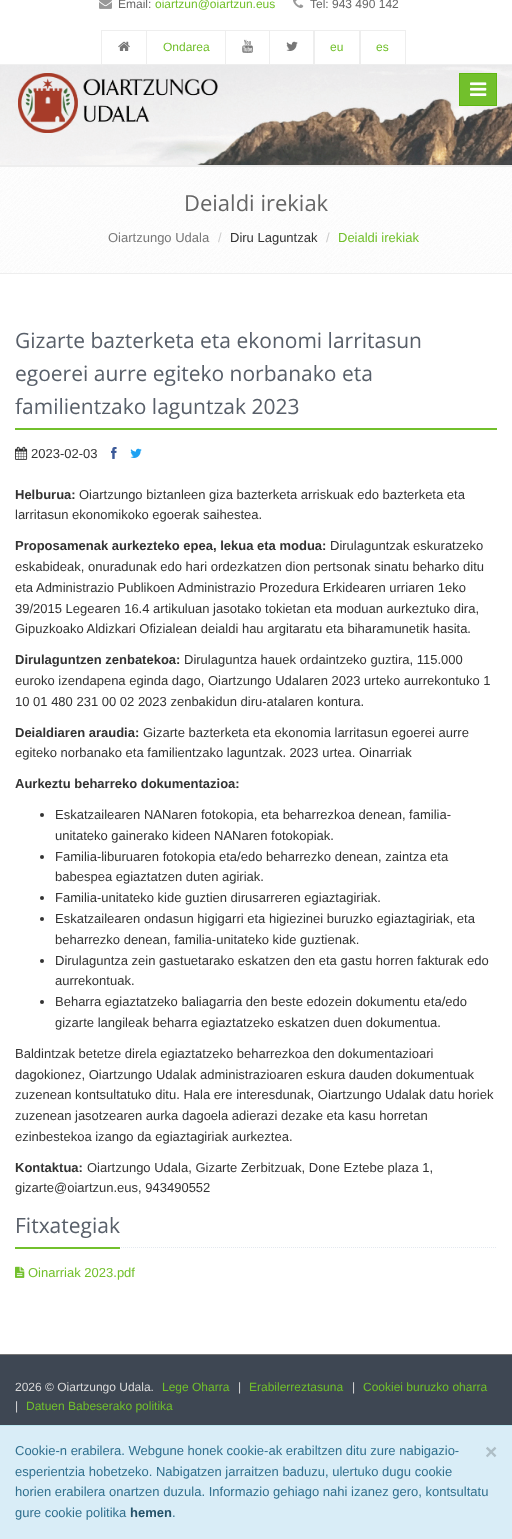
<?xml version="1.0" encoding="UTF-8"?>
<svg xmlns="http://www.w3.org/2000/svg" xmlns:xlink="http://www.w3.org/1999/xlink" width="512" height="1539">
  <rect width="100%" height="100%" fill="#ffffff" />
  <rect y="165" width="512" height="2" fill="#eeeeee" />
  <rect y="64" width="512" height="1" fill="#f0f0f0" />
  <image x="99" y="0" width="13" height="9" xlink:href="image1.png" />
  <image x="293" y="0" width="11" height="8" xlink:href="image2.png" />
  <rect x="101.5" y="30.5" width="45" height="34" fill="none" stroke="#eeeeee" />
  <image x="118" y="41" width="12" height="10" xlink:href="image3.png" />
  <rect x="146.5" y="30.5" width="79" height="34" fill="none" stroke="#eeeeee" />
  <rect x="225.5" y="30.5" width="44" height="34" fill="none" stroke="#eeeeee" />
  <image x="242" y="39" width="11" height="14" xlink:href="image4.png" />
  <rect x="269.5" y="30.5" width="45" height="34" fill="none" stroke="#eeeeee" />
  <image x="286" y="41" width="12" height="10" xlink:href="image5.png" />
  <rect x="313.5" y="30.5" width="47" height="34" fill="none" stroke="#eeeeee" />
  <rect x="359.5" y="30.5" width="46" height="34" fill="none" stroke="#eeeeee" />
  <image x="0" y="65" width="512" height="100" xlink:href="image6.png" />
  <image x="18" y="73" width="200" height="60" xlink:href="image7.png" />
  <rect x="459.5" y="73.5" width="37" height="32" fill="#72c02c" stroke="#5fb611" />
  <image x="470" y="82" width="17" height="14" xlink:href="image8.png" />
  <image x="0" y="167" width="512" height="106" xlink:href="image9.png" />
  <rect y="273" width="512" height="1" fill="#eeeeee" />
  <rect x="15" y="428" width="482" height="2" fill="#72c02c" />
  <image x="15" y="446" width="13" height="14" xlink:href="image10.png" />
  <image x="111" y="447" width="6" height="12" xlink:href="image11.png" />
  <image x="130" y="448" width="12" height="10" xlink:href="image12.png" />
  <circle cx="42" cy="815" r="2" fill="#333333" />
  <circle cx="42" cy="857" r="2" fill="#333333" />
  <circle cx="42" cy="898" r="2" fill="#333333" />
  <circle cx="42" cy="919" r="2" fill="#333333" />
  <circle cx="42" cy="961" r="2" fill="#333333" />
  <circle cx="42" cy="1002" r="2" fill="#333333" />
  <path d="M 15 1247.5 h 482" fill="none" stroke="#e4e9f0" stroke-dasharray="1 1" />
  <rect x="15" y="1247" width="105" height="2" fill="#72c02c" />
  <image x="15" y="1266" width="10" height="12" xlink:href="image13.png" />
  <rect y="1355" width="512" height="70" fill="#3e4753" />
  <rect y="1354" width="512" height="1" fill="#777777" />
  <rect y="1426" width="512" height="113" fill="#d9edf7" />
  <rect y="1425" width="512" height="1" fill="#bce8f1" />
  <text x="118" y="8" style="font-family: Liberation Sans; font-size: 12px; fill: #666666">Email:</text>
  <text x="155" y="8" style="font-family: Liberation Sans; font-size: 12px; fill: #72c02c">oiartzun@oiartzun.eus</text>
  <text x="310" y="8" style="font-family: Liberation Sans; font-size: 12px; fill: #666666">Tel: 943 490 142</text>
  <text x="163" y="51" style="font-family: Liberation Sans; font-size: 12px; fill: #72c02c">Ondarea</text>
  <text x="330" y="51" style="font-family: Liberation Sans; font-size: 12px; fill: #72c02c">eu</text>
  <text x="376" y="51" style="font-family: Liberation Sans; font-size: 12px; fill: #72c02c">es</text>
  <text x="184" y="211" style="font-family: Open Sans; font-size: 22px; fill: #666666">Deialdi irekiak</text>
  <text x="108" y="242" style="font-family: Liberation Sans; font-size: 13px; fill: #777777">Oiartzungo Udala</text>
  <text x="218" y="242" style="font-family: Liberation Sans; font-size: 13px; fill: #cccccc">/</text>
  <text x="230" y="242" style="font-family: Liberation Sans; font-size: 13px; fill: #333333">Diru Laguntzak</text>
  <text x="326" y="242" style="font-family: Liberation Sans; font-size: 13px; fill: #cccccc">/</text>
  <text x="338" y="242" style="font-family: Liberation Sans; font-size: 13px; fill: #72c02c">Deialdi irekiak</text>
  <text x="15" y="348" style="font-family: Open Sans; font-size: 21px; fill: #585f69">Gizarte bazterketa eta ekonomi larritasun</text>
  <text x="15" y="381" style="font-family: Open Sans; font-size: 21px; fill: #585f69">egoerei aurre egiteko norbanako eta</text>
  <text x="15" y="414" style="font-family: Open Sans; font-size: 21px; fill: #585f69">familientzako laguntzak 2023</text>
  <text x="31" y="458" style="font-family: Liberation Sans; font-size: 13px; fill: #333333">2023-02-03</text>
  <text x="15" y="499" style="font-family: Liberation Sans; font-size: 13px; font-weight: bold; fill: #333333">Helburua:</text>
  <text x="79" y="499" style="font-family: Liberation Sans; font-size: 13px; fill: #333333">Oiartzungo biztanleen giza bazterketa arriskuak edo bazterketa eta</text>
  <text x="15" y="519" style="font-family: Liberation Sans; font-size: 13px; fill: #333333">larritasun ekonomikoko egoerak saihestea.</text>
  <text x="15" y="550" style="font-family: Liberation Sans; font-size: 13px; font-weight: bold; fill: #333333">Proposamenak aurkezteko epea, lekua eta modua:</text>
  <text x="330" y="550" style="font-family: Liberation Sans; font-size: 13px; fill: #333333">Dirulaguntzak eskuratzeko</text>
  <text x="15" y="571" style="font-family: Liberation Sans; font-size: 13px; fill: #333333">eskabideak, onuradunak edo hari ordezkatzen dion pertsonak sinatu beharko ditu</text>
  <text x="15" y="592" style="font-family: Liberation Sans; font-size: 13px; fill: #333333">eta Administrazio Publikoen Administrazio Prozedura Erkidearen urriaren 1eko</text>
  <text x="15" y="613" style="font-family: Liberation Sans; font-size: 13px; fill: #333333">39/2015 Legearen 16.4 artikuluan jasotako tokietan eta moduan aurkeztuko dira,</text>
  <text x="15" y="633" style="font-family: Liberation Sans; font-size: 13px; fill: #333333">Gipuzkoako Aldizkari Ofizialean deialdi hau argitaratu eta biharamunetik hasita.</text>
  <text x="15" y="664" style="font-family: Liberation Sans; font-size: 13px; font-weight: bold; fill: #333333">Dirulaguntzen zenbatekoa:</text>
  <text x="184" y="664" style="font-family: Liberation Sans; font-size: 13px; fill: #333333">Dirulaguntza hauek ordaintzeko guztira, 115.000</text>
  <text x="15" y="685" style="font-family: Liberation Sans; font-size: 13px; fill: #333333">euroko izendapena eginda dago, Oiartzungo Udalaren 2023 urteko aurrekontuko 1</text>
  <text x="15" y="706" style="font-family: Liberation Sans; font-size: 13px; fill: #333333">10 01 480 231 00 02 2023 zenbakidun diru-atalaren kontura.</text>
  <text x="15" y="737" style="font-family: Liberation Sans; font-size: 13px; font-weight: bold; fill: #333333">Deialdiaren araudia:</text>
  <text x="143" y="737" style="font-family: Liberation Sans; font-size: 13px; fill: #333333">Gizarte bazterketa eta ekonomia larritasun egoerei aurre</text>
  <text x="15" y="757" style="font-family: Liberation Sans; font-size: 13px; fill: #333333">egiteko norbanako eta familientzako laguntzak. 2023 urtea. Oinarriak</text>
  <text x="15" y="788" style="font-family: Liberation Sans; font-size: 13px; font-weight: bold; fill: #333333">Aurkeztu beharreko dokumentazioa:</text>
  <text x="55" y="819" style="font-family: Liberation Sans; font-size: 13px; fill: #333333">Eskatzailearen NANaren fotokopia, eta beharrezkoa denean, familia-</text>
  <text x="55" y="840" style="font-family: Liberation Sans; font-size: 13px; fill: #333333">unitateko gainerako kideen NANaren fotokopiak.</text>
  <text x="55" y="861" style="font-family: Liberation Sans; font-size: 13px; fill: #333333">Familia-liburuaren fotokopia eta/edo beharrezko denean, zaintza eta</text>
  <text x="55" y="881" style="font-family: Liberation Sans; font-size: 13px; fill: #333333">babespea egiaztatzen duten agiriak.</text>
  <text x="55" y="902" style="font-family: Liberation Sans; font-size: 13px; fill: #333333">Familia-unitateko kide guztien dirusarreren egiaztagiriak.</text>
  <text x="55" y="923" style="font-family: Liberation Sans; font-size: 13px; fill: #333333">Eskatzailearen ondasun higigarri eta higiezinei buruzko egiaztagiriak, eta</text>
  <text x="55" y="944" style="font-family: Liberation Sans; font-size: 13px; fill: #333333">beharrezko denean, familia-unitateko kide guztienak.</text>
  <text x="55" y="965" style="font-family: Liberation Sans; font-size: 13px; fill: #333333">Dirulaguntza zein gastuetarako eskatzen den eta gastu horren fakturak edo</text>
  <text x="55" y="985" style="font-family: Liberation Sans; font-size: 13px; fill: #333333">aurrekontuak.</text>
  <text x="55" y="1006" style="font-family: Liberation Sans; font-size: 13px; fill: #333333">Beharra egiaztatzeko baliagarria den beste edozein dokumentu eta/edo</text>
  <text x="55" y="1027" style="font-family: Liberation Sans; font-size: 13px; fill: #333333">gizarte langileak beharra egiaztatzeko eskatzen duen dokumentua.</text>
  <text x="15" y="1058" style="font-family: Liberation Sans; font-size: 13px; fill: #333333">Baldintzak betetze direla egiaztatzeko beharrezkoa den dokumentazioari</text>
  <text x="15" y="1079" style="font-family: Liberation Sans; font-size: 13px; fill: #333333">dagokionez, Oiartzungo Udalak administrazioaren eskura dauden dokumentuak</text>
  <text x="15" y="1099" style="font-family: Liberation Sans; font-size: 13px; fill: #333333">zuzenean kontsultatuko ditu. Hala ere interesdunak, Oiartzungo Udalak datu horiek</text>
  <text x="15" y="1120" style="font-family: Liberation Sans; font-size: 13px; fill: #333333">zuzenean jasotzearen aurka dagoela adierazi dezake eta kasu horretan</text>
  <text x="15" y="1141" style="font-family: Liberation Sans; font-size: 13px; fill: #333333">ezinbestekoa izango da egiaztagiriak aurkeztea.</text>
  <text x="15" y="1172" style="font-family: Liberation Sans; font-size: 13px; font-weight: bold; fill: #333333">Kontaktua:</text>
  <text x="87" y="1172" style="font-family: Liberation Sans; font-size: 13px; fill: #333333">Oiartzungo Udala, Gizarte Zerbitzuak, Done Eztebe plaza 1,</text>
  <text x="15" y="1192" style="font-family: Liberation Sans; font-size: 13px; fill: #333333">gizarte@oiartzun.eus, 943490552</text>
  <text x="15" y="1233" style="font-family: Open Sans; font-size: 21px; fill: #585f69">Fitxategiak</text>
  <text x="28" y="1277" style="font-family: Liberation Sans; font-size: 13px; fill: #72c02c">Oinarriak 2023.pdf</text>
  <text x="15" y="1391" style="font-family: Liberation Sans; font-size: 12px; fill: #dadada">2026 © Oiartzungo Udala.</text>
  <text x="162" y="1391" style="font-family: Liberation Sans; font-size: 12px; fill: #72c02c">Lege Oharra</text>
  <text x="238" y="1391" style="font-family: Liberation Sans; font-size: 12px; fill: #dadada">|</text>
  <text x="249" y="1391" style="font-family: Liberation Sans; font-size: 12px; fill: #72c02c">Erabilerreztasuna</text>
  <text x="352" y="1391" style="font-family: Liberation Sans; font-size: 12px; fill: #dadada">|</text>
  <text x="363" y="1391" style="font-family: Liberation Sans; font-size: 12px; fill: #72c02c">Cookiei buruzko oharra</text>
  <text x="15" y="1410" style="font-family: Liberation Sans; font-size: 12px; fill: #dadada">|</text>
  <text x="26" y="1410" style="font-family: Liberation Sans; font-size: 12px; fill: #72c02c">Datuen Babeserako politika</text>
  <text x="15" y="1455" style="font-family: Liberation Sans; font-size: 13px; fill: #31708f">Cookie-n erabilera. Webgune honek cookie-ak erabiltzen ditu zure nabigazio-</text>
  <text x="485" y="1459" style="font-family: Liberation Sans; font-size: 21px; font-weight: bold; fill: #aebec6">×</text>
  <text x="15" y="1476" style="font-family: Liberation Sans; font-size: 13px; fill: #31708f">esperientzia hobetzeko. Nabigatzen jarraitzen baduzu, ulertuko dugu cookie</text>
  <text x="15" y="1496" style="font-family: Liberation Sans; font-size: 13px; fill: #31708f">horien erabilera onartzen duzula. Informazio gehiago nahi izanez gero, kontsultatu</text>
  <text x="15" y="1517" style="font-family: Liberation Sans; font-size: 13px; fill: #31708f">gure cookie politika</text>
  <text x="130" y="1517" style="font-family: Liberation Sans; font-size: 13px; font-weight: bold; fill: #245269">hemen</text>
  <text x="172" y="1517" style="font-family: Liberation Sans; font-size: 13px; fill: #31708f">.</text>
</svg>
